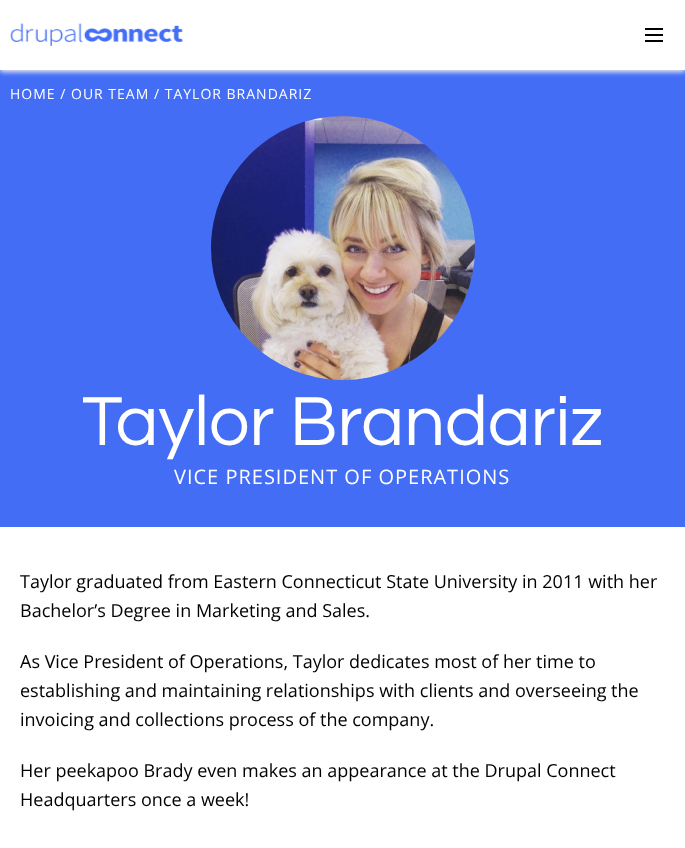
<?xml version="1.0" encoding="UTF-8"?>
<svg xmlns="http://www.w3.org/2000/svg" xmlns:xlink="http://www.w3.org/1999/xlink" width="685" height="848">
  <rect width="100%" height="100%" fill="#ffffff" />
  <rect y="70" width="685" height="457" fill="#446df6" />
  <rect y="2" width="685" height="70" fill="#eeeeee" filter="blur(2.5px)" />
  <rect width="685" height="70" fill="#ffffff" />
  <image x="10" y="23" width="174" height="23" xlink:href="image1.png" />
  <rect x="645" y="40" width="18" height="2" fill="#000000" />
  <rect x="645" y="34" width="18" height="2" fill="#000000" />
  <rect x="645" y="28" width="18" height="2" fill="#000000" />
  <image x="211" y="116" width="264" height="264" xlink:href="image2.png" />
  <text x="10" y="99" style="font-family: Open Sans; font-size: 14px; letter-spacing: 1px; fill: #ffffff">HOME / OUR TEAM / TAYLOR BRANDARIZ</text>
  <text x="82" y="445" style="font-family: Questrial; font-size: 72px; fill: #ffffff">Taylor Brandariz</text>
  <text x="174" y="484" style="font-family: Open Sans; font-size: 20px; letter-spacing: 1px; fill: #ffffff">VICE PRESIDENT OF OPERATIONS</text>
  <text x="20" y="588" style="font-family: Open Sans; font-size: 18px; fill: #000000">Taylor graduated from Eastern Connecticut State University in 2011 with her</text>
  <text x="20" y="617" style="font-family: Open Sans; font-size: 18px; fill: #000000">Bachelor’s Degree in Marketing and Sales.</text>
  <text x="20" y="668" style="font-family: Open Sans; font-size: 18px; fill: #000000">As Vice President of Operations, Taylor dedicates most of her time to</text>
  <text x="20" y="697" style="font-family: Open Sans; font-size: 18px; fill: #000000">establishing and maintaining relationships with clients and overseeing the</text>
  <text x="20" y="726" style="font-family: Open Sans; font-size: 18px; fill: #000000">invoicing and collections process of the company.</text>
  <text x="20" y="777" style="font-family: Open Sans; font-size: 18px; fill: #000000">Her peekapoo Brady even makes an appearance at the Drupal Connect</text>
  <text x="20" y="806" style="font-family: Open Sans; font-size: 18px; fill: #000000">Headquarters once a week!</text>
</svg>
